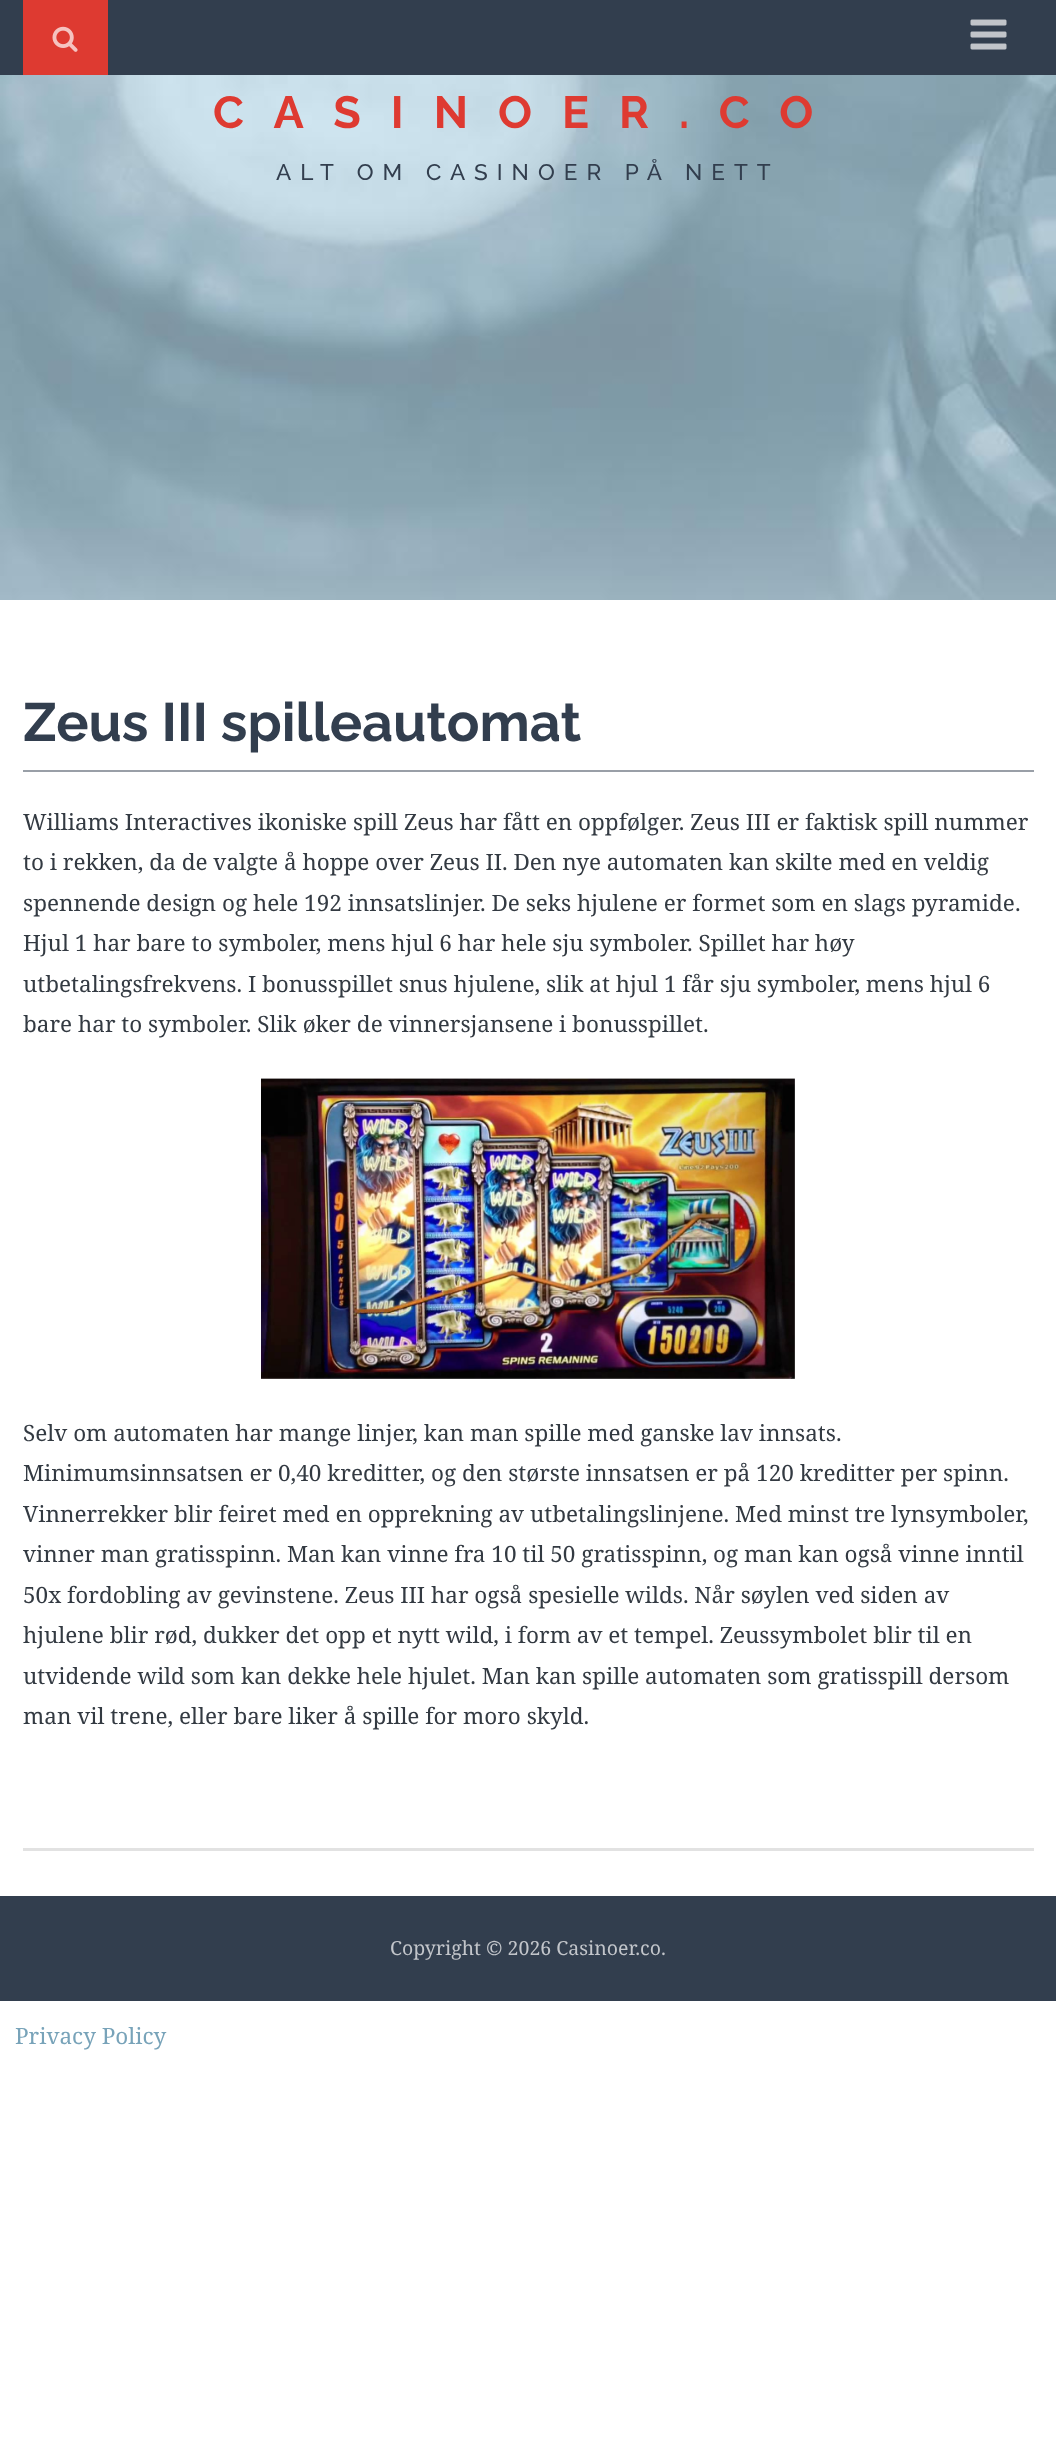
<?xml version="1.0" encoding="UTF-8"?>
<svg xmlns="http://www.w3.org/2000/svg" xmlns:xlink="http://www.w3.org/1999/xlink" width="1056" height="2451">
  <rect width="100%" height="100%" fill="#ffffff" />
  <rect width="1056" height="75" fill="#323e4e" />
  <rect x="23" width="85" height="75" fill="#de3a31" />
  <image x="52" y="26" width="26" height="26" xlink:href="image1.png" />
  <image x="970" y="19" width="37" height="31" xlink:href="image2.png" />
  <image x="0" y="75" width="1056" height="525" xlink:href="image3.png" />
  <rect x="23" y="1848" width="1011" height="3" fill="#e2e2e2" />
  <rect x="23" y="770" width="1011" height="2" fill="#999fa7" />
  <image x="261" y="1078" width="534" height="301" xlink:href="image4.png" />
  <rect y="1896" width="1056" height="105" fill="#323e4e" />
  <text x="213" y="128" style="font-family: Raleway; font-size: 45px; font-weight: bold; letter-spacing: 30px; fill: #de3a31">CASINOER.CO</text>
  <text x="276" y="180" style="font-family: Raleway; font-size: 22.5px; font-weight: 500; letter-spacing: 9px; fill: #323e4e">ALT OM CASINOER PÅ NETT</text>
  <text x="23" y="741" style="font-family: Raleway; font-size: 54px; font-weight: bold; fill: #323e4e">Zeus III spilleautomat</text>
  <text x="23" y="830" style="font-family: Noto Serif; font-size: 22.5px; fill: #333a42">Williams Interactives ikoniske spill Zeus har fått en oppfølger. Zeus III er faktisk spill nummer</text>
  <text x="23" y="870" style="font-family: Noto Serif; font-size: 22.5px; fill: #333a42">to i rekken, da de valgte å hoppe over Zeus II. Den nye automaten kan skilte med en veldig</text>
  <text x="23" y="911" style="font-family: Noto Serif; font-size: 22.5px; fill: #333a42">spennende design og hele 192 innsatslinjer. De seks hjulene er formet som en slags pyramide.</text>
  <text x="23" y="951" style="font-family: Noto Serif; font-size: 22.5px; fill: #333a42">Hjul 1 har bare to symboler, mens hjul 6 har hele sju symboler. Spillet har høy</text>
  <text x="23" y="992" style="font-family: Noto Serif; font-size: 22.5px; fill: #333a42">utbetalingsfrekvens. I bonusspillet snus hjulene, slik at hjul 1 får sju symboler, mens hjul 6</text>
  <text x="23" y="1032" style="font-family: Noto Serif; font-size: 22.5px; fill: #333a42">bare har to symboler. Slik øker de vinnersjansene i bonusspillet.</text>
  <text x="23" y="1441" style="font-family: Noto Serif; font-size: 22.5px; fill: #333a42">Selv om automaten har mange linjer, kan man spille med ganske lav innsats.</text>
  <text x="23" y="1481" style="font-family: Noto Serif; font-size: 22.5px; fill: #333a42">Minimumsinnsatsen er 0,40 kreditter, og den største innsatsen er på 120 kreditter per spinn.</text>
  <text x="23" y="1522" style="font-family: Noto Serif; font-size: 22.5px; fill: #333a42">Vinnerrekker blir feiret med en opprekning av utbetalingslinjene. Med minst tre lynsymboler,</text>
  <text x="23" y="1562" style="font-family: Noto Serif; font-size: 22.5px; fill: #333a42">vinner man gratisspinn. Man kan vinne fra 10 til 50 gratisspinn, og man kan også vinne inntil</text>
  <text x="23" y="1603" style="font-family: Noto Serif; font-size: 22.5px; fill: #333a42">50x fordobling av gevinstene. Zeus III har også spesielle wilds. Når søylen ved siden av</text>
  <text x="23" y="1643" style="font-family: Noto Serif; font-size: 22.5px; fill: #333a42">hjulene blir rød, dukker det opp et nytt wild, i form av et tempel. Zeussymbolet blir til en</text>
  <text x="23" y="1684" style="font-family: Noto Serif; font-size: 22.5px; fill: #333a42">utvidende wild som kan dekke hele hjulet. Man kan spille automaten som gratisspill dersom</text>
  <text x="23" y="1724" style="font-family: Noto Serif; font-size: 22.5px; fill: #333a42">man vil trene, eller bare liker å spille for moro skyld.</text>
  <text x="390" y="1955" style="font-family: Noto Serif; font-size: 19.5px; fill: #c2c5ca">Copyright © 2026 Casinoer.co.</text>
  <text x="15" y="2044" style="font-family: Noto Serif; font-size: 22.5px; fill: #78a3b9">Privacy Policy</text>
</svg>
